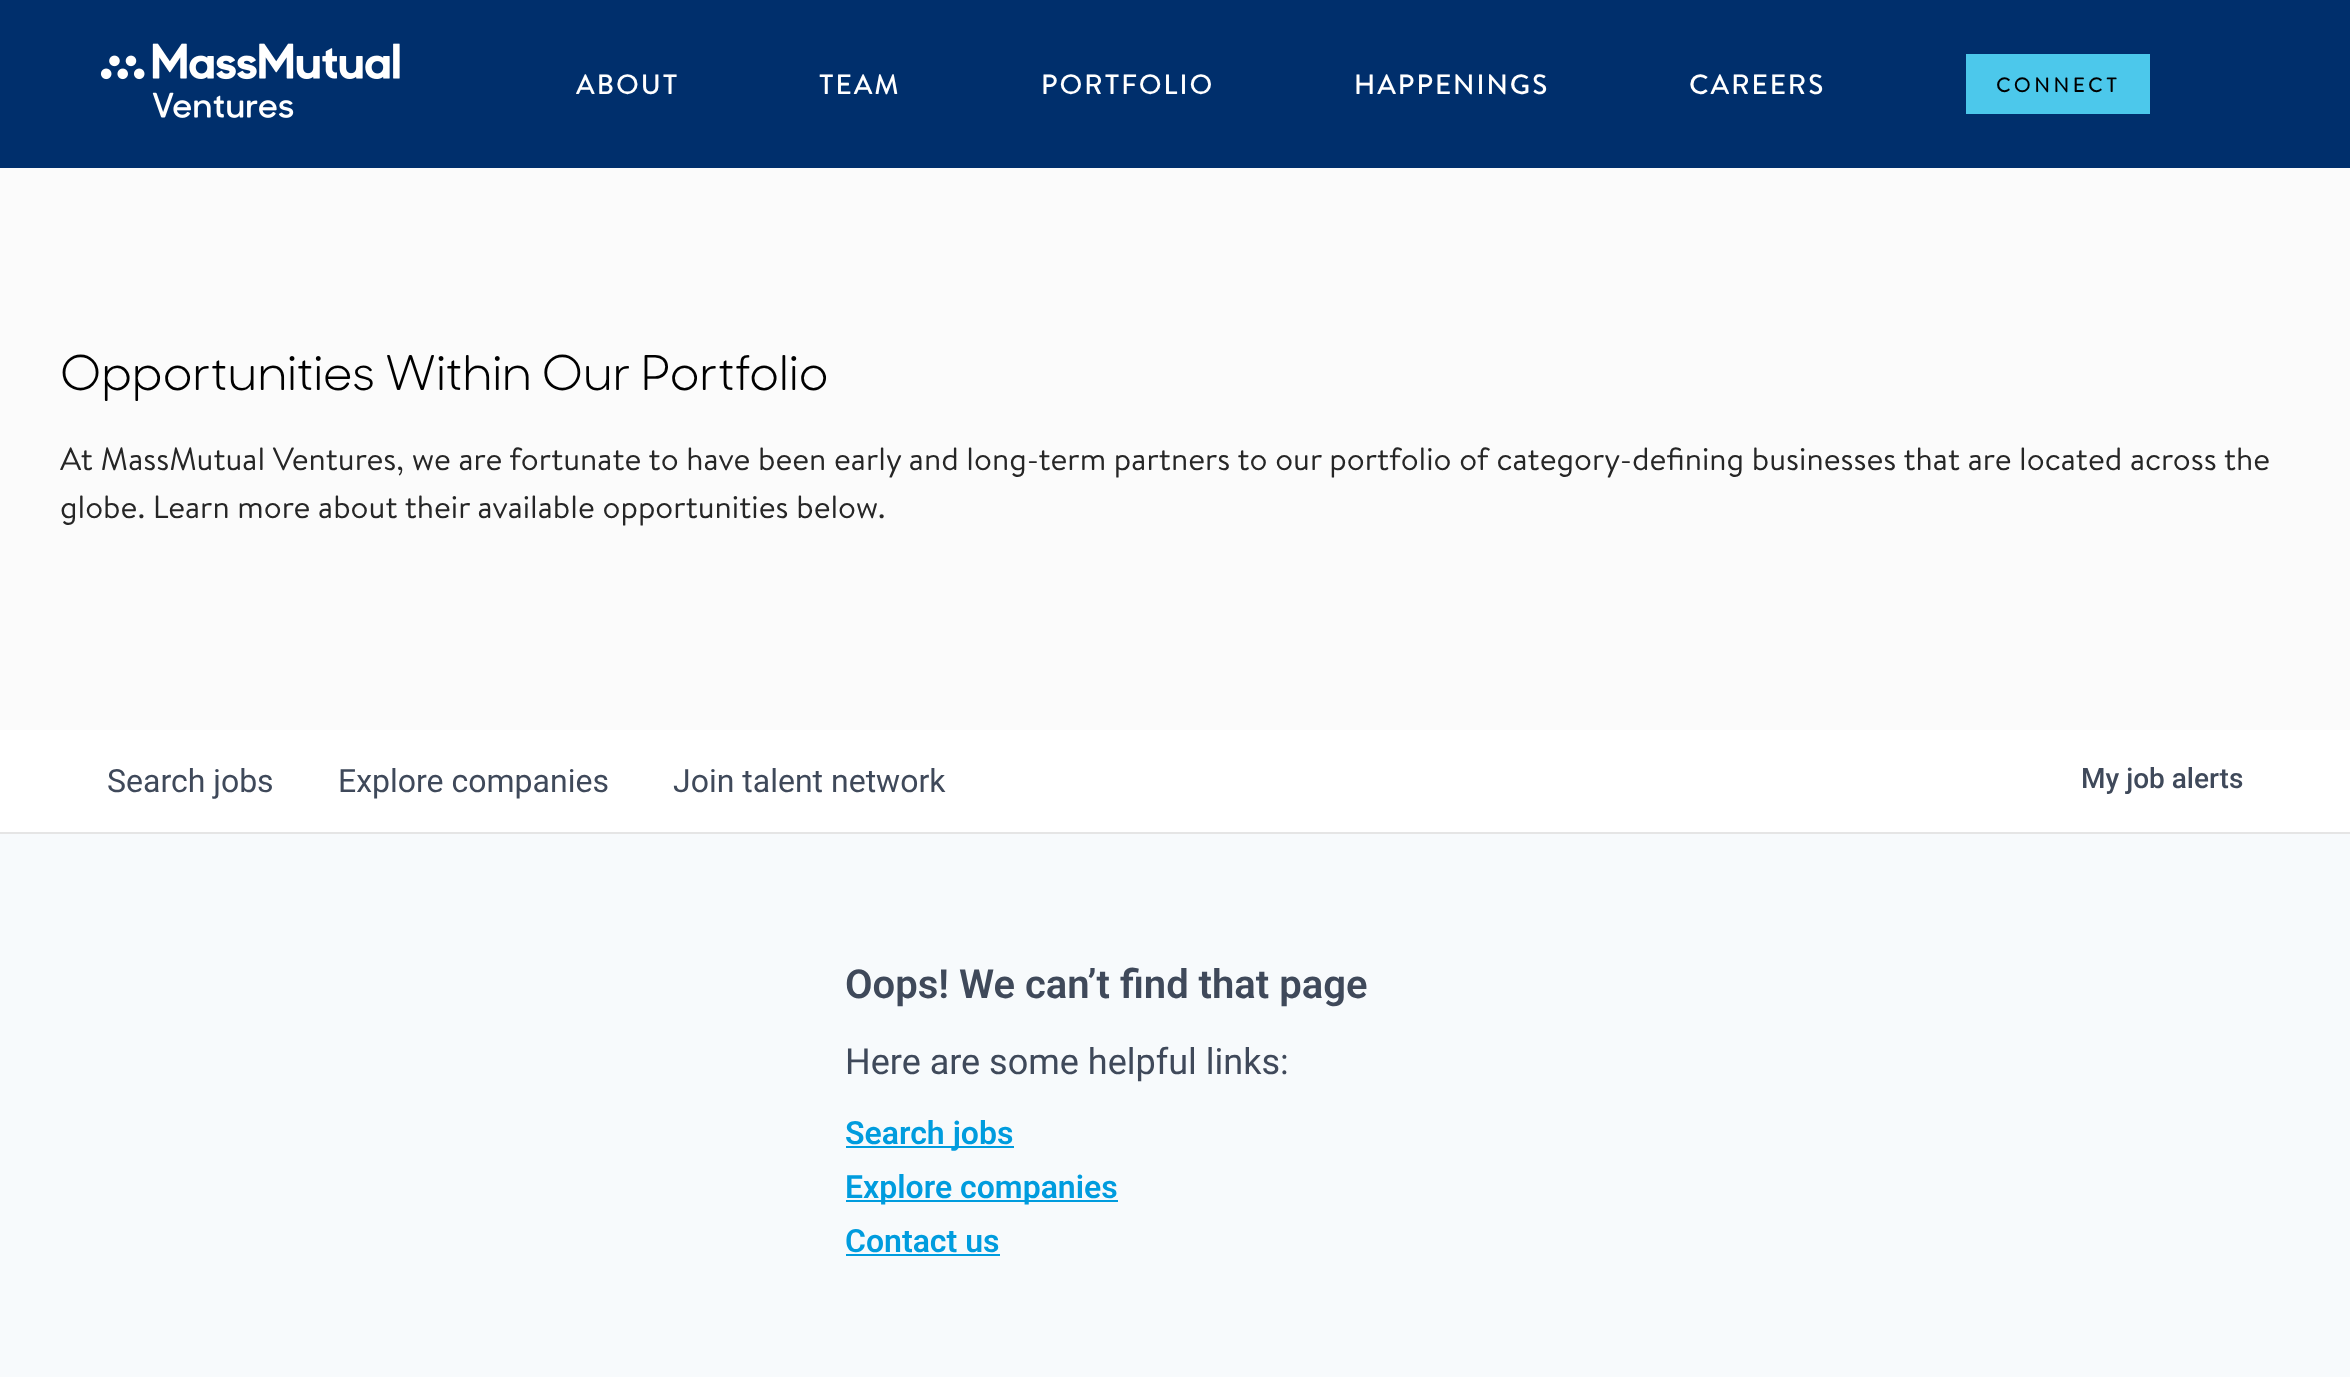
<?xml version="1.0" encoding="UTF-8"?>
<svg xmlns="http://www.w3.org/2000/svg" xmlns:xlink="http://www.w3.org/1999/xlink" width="2350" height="1377">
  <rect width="100%" height="100%" fill="#f7fafc" />
  <rect y="168" width="2350" height="562" fill="#fbfbfb" />
  <rect width="2350" height="168" fill="#002f6c" />
  <image x="100" y="43" width="300" height="75" xlink:href="image1.png" />
  <rect x="1966" y="54" width="184" height="60" fill="#4cc8eb" />
  <rect y="832" width="2350" height="2" fill="#e5e5e5" />
  <rect y="730" width="2350" height="102" fill="#ffffff" />
  <rect x="846" y="1146" width="168" height="2" fill="#009cde" />
  <rect x="846" y="1200" width="272" height="2" fill="#009cde" />
  <rect x="846" y="1254" width="154" height="2" fill="#009cde" />
  <text x="576" y="94" style="font-family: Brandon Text; font-size: 28px; font-weight: 500; letter-spacing: 2px; fill: #ffffff">ABOUT</text>
  <text x="819" y="94" style="font-family: Brandon Text; font-size: 28px; font-weight: 500; letter-spacing: 2px; fill: #ffffff">TEAM</text>
  <text x="1041" y="94" style="font-family: Brandon Text; font-size: 28px; font-weight: 500; letter-spacing: 2px; fill: #ffffff">PORTFOLIO</text>
  <text x="1354" y="94" style="font-family: Brandon Text; font-size: 28px; font-weight: 500; letter-spacing: 2px; fill: #ffffff">HAPPENINGS</text>
  <text x="1689" y="94" style="font-family: Brandon Text; font-size: 28px; font-weight: 500; letter-spacing: 2px; fill: #ffffff">CAREERS</text>
  <text x="1996" y="92" style="font-family: Brandon Text; font-size: 20px; font-weight: bold; letter-spacing: 4px; fill: #000000">CONNECT</text>
  <text x="60" y="390" style="font-family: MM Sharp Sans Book; font-size: 48px; fill: #000000">Opportunities Within Our Portfolio</text>
  <text x="60" y="470" style="font-family: Brandon Text; font-size: 32px; fill: #262626">At MassMutual Ventures, we are fortunate to have been early and long-term partners to our portfolio of category-defining businesses that are located across the</text>
  <text x="60" y="518" style="font-family: Brandon Text; font-size: 32px; fill: #262626">globe. Learn more about their available opportunities below.</text>
  <text x="107" y="792" style="font-family: Roboto; font-size: 32px; fill: #3f495a">Search jobs</text>
  <text x="338" y="792" style="font-family: Roboto; font-size: 32px; fill: #3f495a">Explore companies</text>
  <text x="673" y="792" style="font-family: Roboto; font-size: 32px; fill: #3f495a">Join talent network</text>
  <text x="2081" y="788" style="font-family: Roboto; font-size: 28px; font-weight: 500; fill: #3f495a">My job alerts</text>
  <text x="845" y="998" style="font-family: Roboto; font-size: 40px; font-weight: 600; fill: #3f495a">Oops! We can’t find that page</text>
  <text x="845" y="1074" style="font-family: Roboto; font-size: 36px; fill: #3f495a">Here are some helpful links:</text>
  <text x="845" y="1144" style="font-family: Roboto; font-size: 32px; font-weight: 600; fill: #009cde">Search jobs</text>
  <text x="845" y="1198" style="font-family: Roboto; font-size: 32px; font-weight: 600; fill: #009cde">Explore companies</text>
  <text x="845" y="1252" style="font-family: Roboto; font-size: 32px; font-weight: 600; fill: #009cde">Contact us</text>
</svg>
